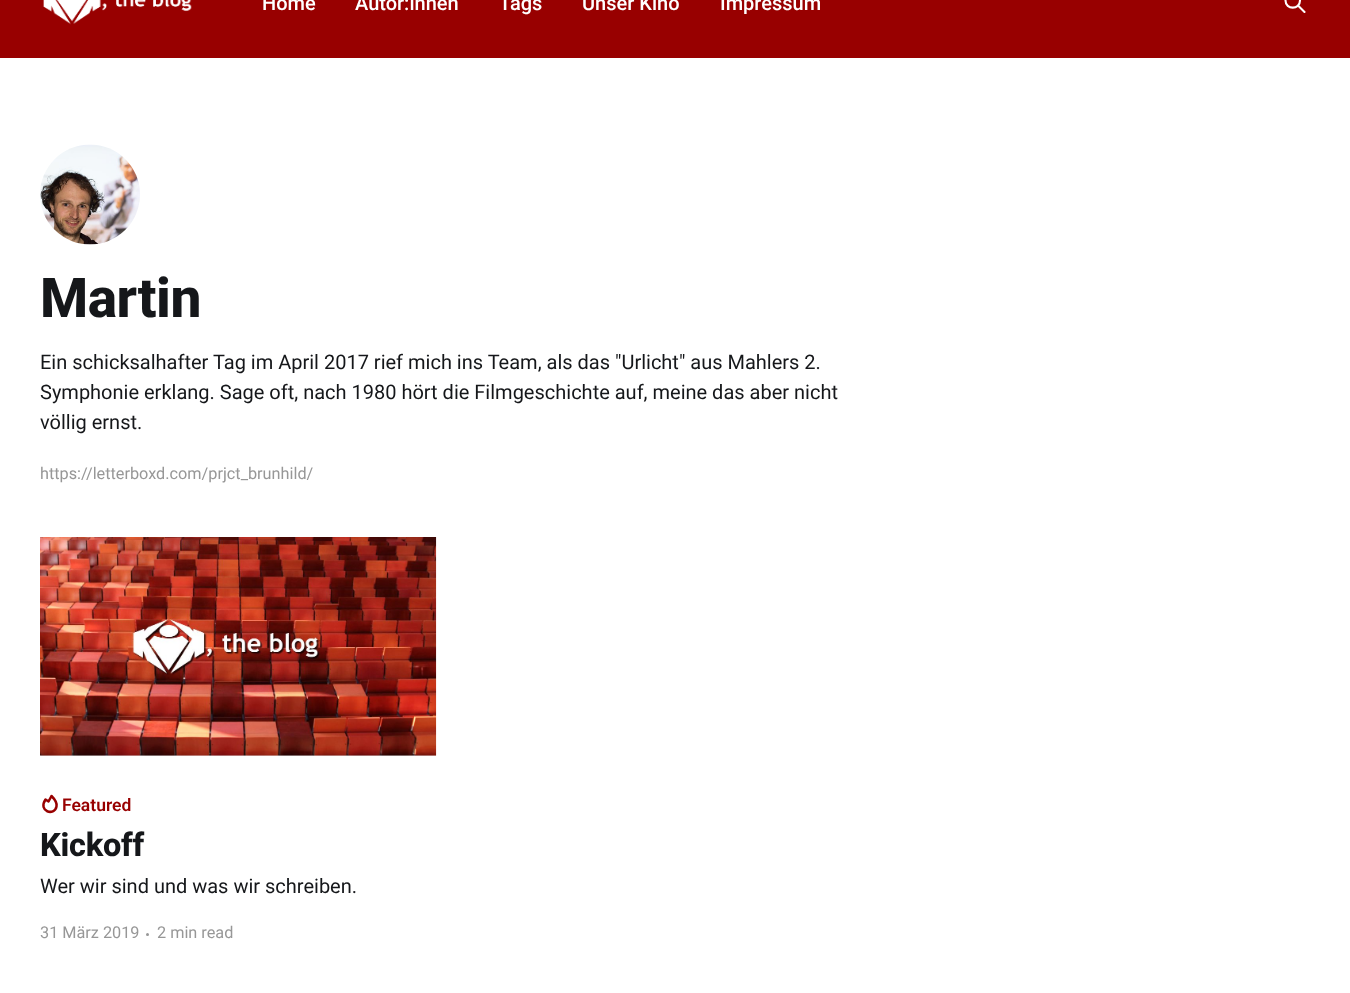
<?xml version="1.0" encoding="UTF-8"?>
<svg xmlns="http://www.w3.org/2000/svg" xmlns:xlink="http://www.w3.org/1999/xlink" width="1350" height="993">
  <rect width="100%" height="100%" fill="#ffffff" />
  <rect width="1350" height="58" fill="#980000" />
  <image x="43" y="0" width="149" height="25" xlink:href="image1.png" />
  <path d="M 1304.5 12 l -6.5 -6.5 m 2 -5 c 0 9.5 -14.5 9.5 -14.5 0 c 0 -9.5 14.5 -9.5 14.5 0 z" fill="none" stroke="#ffffff" stroke-width="2.1" stroke-linecap="round" stroke-linejoin="round" />
  <image x="40" y="144" width="100" height="101" xlink:href="image2.png" />
  <rect x="40" y="755" width="396" height="1" fill="#f1f1f1" />
  <image x="40" y="537" width="397" height="219" xlink:href="image3.png" />
  <path d="M 45.5 799.5 c -8 12 9 17 11 7 c 1 -4 -2.5 -8 -5 -10.5 l -3 5.5 z" fill="none" stroke="#980000" stroke-width="2.5" stroke-linecap="round" stroke-linejoin="round" />
  <circle cx="147.5" cy="934.5" r="1.5" fill="#979797" />
  <text x="262" y="10" style="font-family: Roboto; font-size: 20px; font-weight: 500; fill: #ffffff">Home</text>
  <text x="355" y="10" style="font-family: Roboto; font-size: 20px; font-weight: 500; fill: #ffffff">Autor:innen</text>
  <text x="499" y="10" style="font-family: Roboto; font-size: 20px; font-weight: 500; fill: #ffffff">Tags</text>
  <text x="582" y="10" style="font-family: Roboto; font-size: 20px; font-weight: 500; fill: #ffffff">Unser Kino</text>
  <text x="720" y="10" style="font-family: Roboto; font-size: 20px; font-weight: 500; fill: #ffffff">Impressum</text>
  <text x="40" y="317" style="font-family: Roboto; font-size: 55px; font-weight: 800; letter-spacing: -0.5px; fill: #15171a">Martin</text>
  <text x="40" y="369" style="font-family: Roboto; font-size: 20px; fill: #15171a">Ein schicksalhafter Tag im April 2017 rief mich ins Team, als das "Urlicht" aus Mahlers 2.</text>
  <text x="40" y="399" style="font-family: Roboto; font-size: 20px; fill: #15171a">Symphonie erklang. Sage oft, nach 1980 hört die Filmgeschichte auf, meine das aber nicht</text>
  <text x="40" y="429" style="font-family: Roboto; font-size: 20px; fill: #15171a">völlig ernst.</text>
  <text x="40" y="479" style="font-family: Roboto; font-size: 16.25px; fill: #979797">https://letterboxd.com/prjct_brunhild/</text>
  <text x="62" y="811" style="font-family: Roboto; font-size: 17.5px; font-weight: 600; fill: #980000">Featured</text>
  <text x="40" y="856" style="font-family: Roboto; font-size: 32.5px; font-weight: 800; letter-spacing: -0.25px; fill: #15171a">Kickoff</text>
  <text x="40" y="893" style="font-family: Roboto; font-size: 20px; fill: #15171a">Wer wir sind und was wir schreiben.</text>
  <text x="40" y="938" style="font-family: Roboto; font-size: 16.25px; fill: #979797">31 März 2019</text>
  <text x="157" y="938" style="font-family: Roboto; font-size: 16.25px; fill: #979797">2 min read</text>
</svg>
